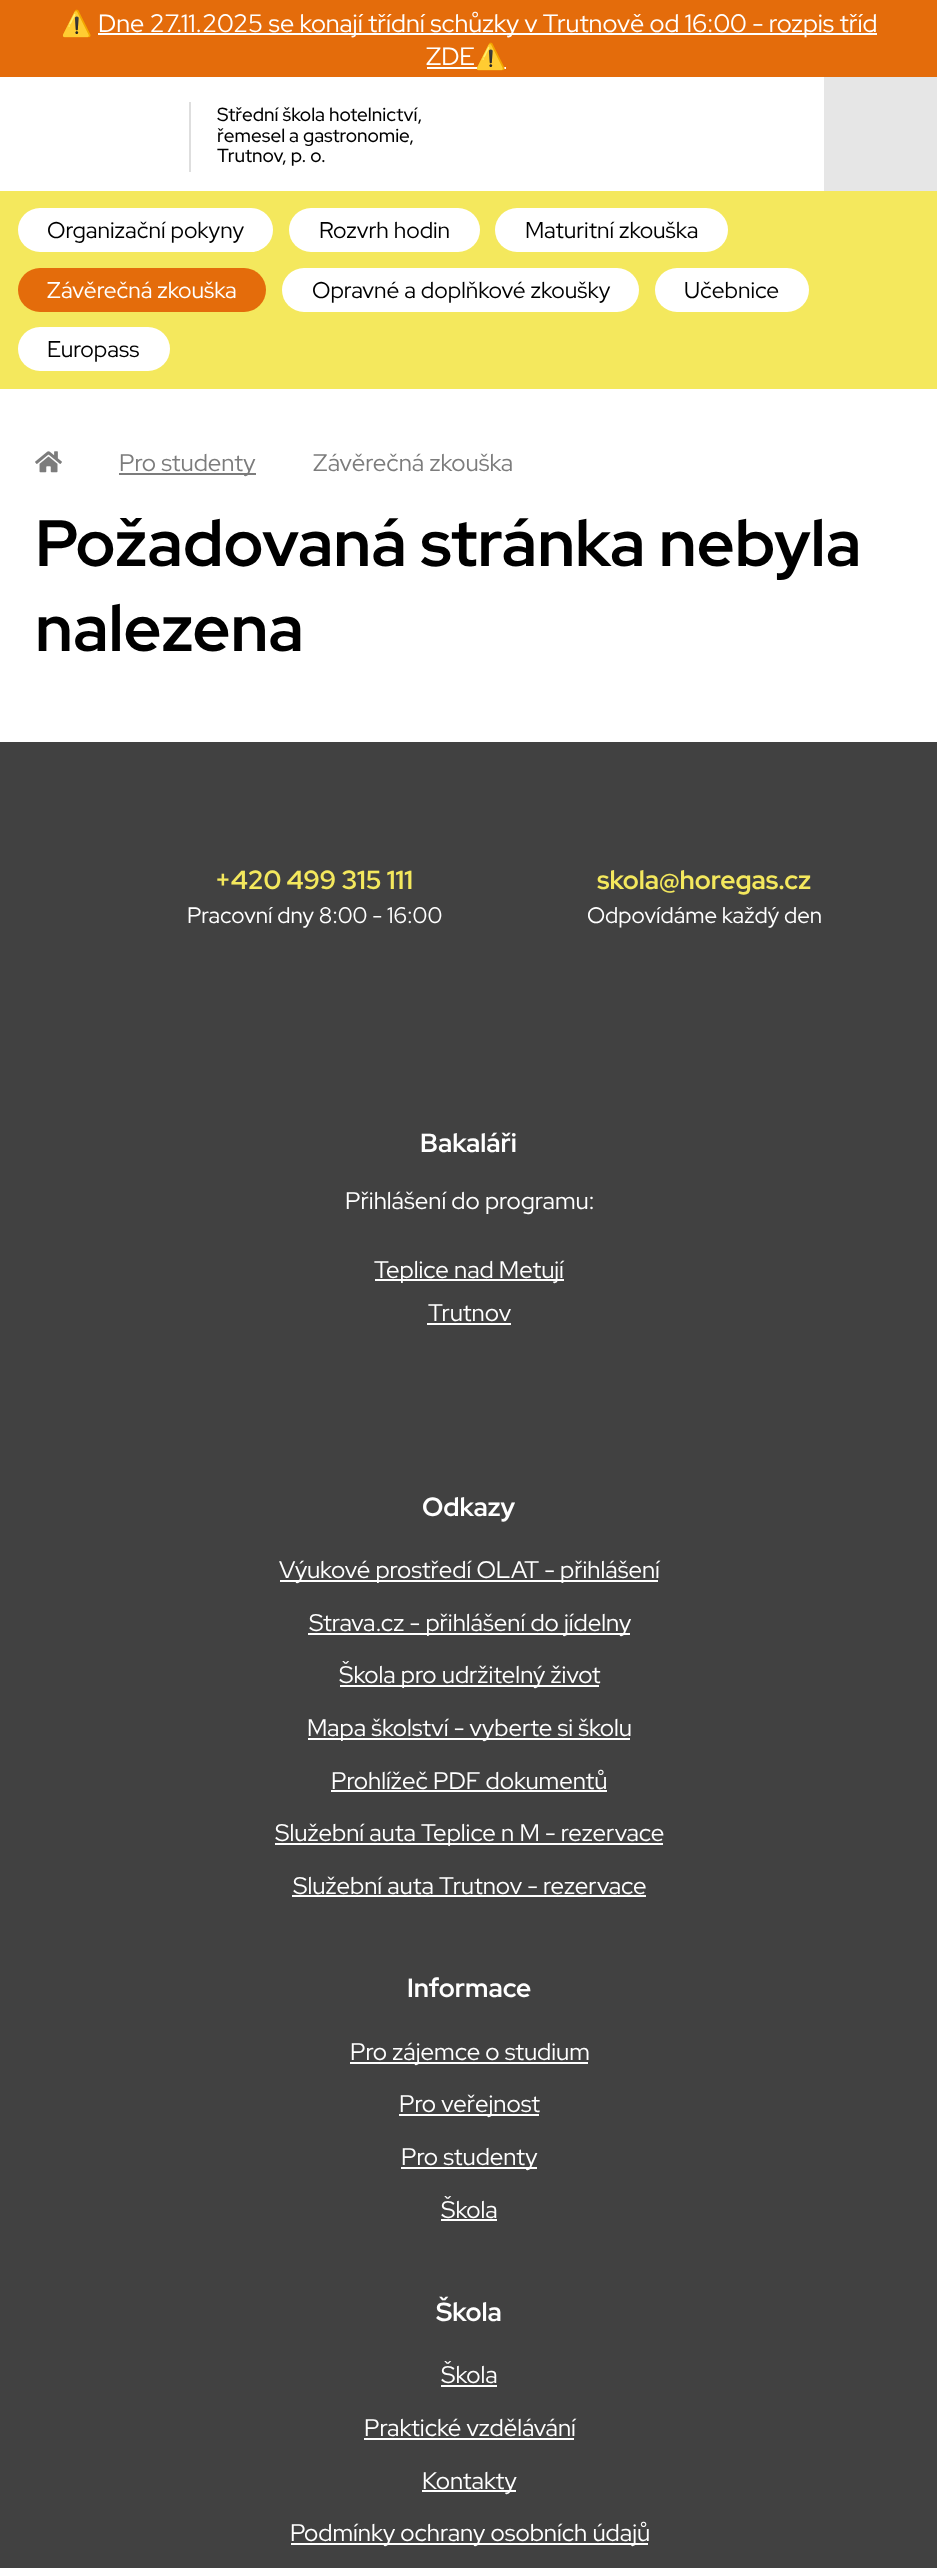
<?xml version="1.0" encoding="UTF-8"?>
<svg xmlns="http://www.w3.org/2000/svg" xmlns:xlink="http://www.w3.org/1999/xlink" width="937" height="2568">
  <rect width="100%" height="100%" fill="#ffffff" />
  <rect width="937" height="77" fill="#e46c0b" />
  <rect x="98" y="33" width="779" height="2" fill="#ffffff" />
  <rect x="427" y="67" width="79" height="2" fill="#ffffff" />
  <rect x="189" y="102" width="2" height="70" fill="#dedede" />
  <rect x="824" y="77" width="113" height="114" fill="#e6e6e6" />
  <rect y="191" width="937" height="198" fill="#f4e85d" />
  <rect x="18" y="208" width="255" height="44" rx="22" fill="#ffffff" />
  <rect x="289" y="208" width="191" height="44" rx="22" fill="#ffffff" />
  <rect x="495" y="208" width="233" height="44" rx="22" fill="#ffffff" />
  <rect x="18" y="268" width="248" height="44" rx="22" fill="#e46c0b" />
  <rect x="282" y="268" width="357" height="44" rx="22" fill="#ffffff" />
  <rect x="655" y="268" width="154" height="44" rx="22" fill="#ffffff" />
  <rect x="18" y="327" width="152" height="44" rx="22" fill="#ffffff" />
  <image x="35" y="451" width="27" height="22" xlink:href="image1.png" />
  <rect x="119" y="473" width="137" height="2" fill="#7c7c7c" />
  <rect y="742" width="937" height="1826" fill="#414141" />
  <rect x="375" y="1279" width="189" height="2" fill="#ffffff" />
  <rect x="427" y="1323" width="84" height="2" fill="#ffffff" />
  <rect x="280" y="1580" width="378" height="2" fill="#ffffff" />
  <rect x="308" y="1633" width="322" height="2" fill="#ffffff" />
  <rect x="340" y="1685" width="259" height="2" fill="#ffffff" />
  <rect x="308" y="1738" width="322" height="2" fill="#ffffff" />
  <rect x="331" y="1790" width="276" height="2" fill="#ffffff" />
  <rect x="275" y="1843" width="388" height="2" fill="#ffffff" />
  <rect x="292" y="1895" width="354" height="2" fill="#ffffff" />
  <rect x="350" y="2062" width="238" height="2" fill="#ffffff" />
  <rect x="399" y="2114" width="140" height="2" fill="#ffffff" />
  <rect x="401" y="2167" width="136" height="2" fill="#ffffff" />
  <rect x="441" y="2219" width="56" height="2" fill="#ffffff" />
  <rect x="441" y="2385" width="56" height="2" fill="#ffffff" />
  <rect x="364" y="2438" width="210" height="2" fill="#ffffff" />
  <rect x="422" y="2490" width="94" height="2" fill="#ffffff" />
  <rect x="291" y="2543" width="357" height="2" fill="#ffffff" />
  <text x="61" y="32" style="font-family: Noto Color Emoji; font-size: 25.2px; fill: #ffffff">⚠️</text>
  <text x="98" y="32" style="font-family: Red Hat Display; font-size: 25.2px; fill: #ffffff">Dne 27.11.2025 se konají třídní schůzky v Trutnově od 16:00 - rozpis tříd</text>
  <text x="426" y="65" style="font-family: Red Hat Display; font-size: 25.2px; fill: #ffffff">ZDE</text>
  <text x="475" y="65" style="font-family: 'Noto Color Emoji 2'; font-size: 25.2px; fill: #ffffff">⚠️</text>
  <text x="217" y="121" style="font-family: Red Hat Display; font-size: 18.9px; font-weight: 500; fill: #000000">Střední škola hotelnictví,</text>
  <text x="217" y="142" style="font-family: Red Hat Display; font-size: 18.9px; font-weight: 500; fill: #000000">řemesel a gastronomie,</text>
  <text x="217" y="162" style="font-family: Red Hat Display; font-size: 18.9px; font-weight: 500; fill: #000000">Trutnov, p. o.</text>
  <text x="47" y="238" style="font-family: Red Hat Display; font-size: 22.75px; fill: #000000">Organizační pokyny</text>
  <text x="319" y="238" style="font-family: Red Hat Display; font-size: 22.75px; fill: #000000">Rozvrh hodin</text>
  <text x="525" y="238" style="font-family: Red Hat Display; font-size: 22.75px; fill: #000000">Maturitní zkouška</text>
  <text x="47" y="298" style="font-family: Red Hat Display; font-size: 22.75px; fill: #ffffff">Závěrečná zkouška</text>
  <text x="312" y="298" style="font-family: Red Hat Display; font-size: 22.75px; fill: #000000">Opravné a doplňkové zkoušky</text>
  <text x="684" y="298" style="font-family: Red Hat Display; font-size: 22.75px; fill: #000000">Učebnice</text>
  <text x="47" y="357" style="font-family: Red Hat Display; font-size: 22.75px; fill: #000000">Europass</text>
  <text x="119" y="471" style="font-family: Red Hat Display; font-size: 24px; fill: #7c7c7c">Pro studenty</text>
  <text x="313" y="471" style="font-family: Red Hat Display; font-size: 24px; fill: #7c7c7c">Závěrečná zkouška</text>
  <text x="35" y="566" style="font-family: Red Hat Display; font-size: 65.5px; font-weight: bold; fill: #000000">Požadovaná stránka nebyla</text>
  <text x="35" y="651" style="font-family: Red Hat Display; font-size: 65.5px; font-weight: bold; fill: #000000">nalezena</text>
  <text x="215" y="889" style="font-family: Red Hat Display; font-size: 26.25px; font-weight: bold; fill: #f4e85d">+420 499 315 111</text>
  <text x="187" y="923" style="font-family: Red Hat Display; font-size: 22.4px; fill: #ffffff">Pracovní dny 8:00 - 16:00</text>
  <text x="597" y="889" style="font-family: Red Hat Display; font-size: 26.25px; font-weight: bold; fill: #f4e85d">skola@horegas.cz</text>
  <text x="587" y="923" style="font-family: Red Hat Display; font-size: 22.4px; fill: #ffffff">Odpovídáme každý den</text>
  <text x="420" y="1152" style="font-family: Red Hat Display; font-size: 26.25px; font-weight: bold; fill: #ffffff">Bakaláři</text>
  <text x="345" y="1209" style="font-family: Red Hat Display; font-size: 24px; fill: #ffffff">Přihlášení do programu:</text>
  <text x="374" y="1278" style="font-family: Red Hat Display; font-size: 24px; fill: #ffffff">Teplice nad Metují</text>
  <text x="428" y="1321" style="font-family: Red Hat Display; font-size: 24px; fill: #ffffff">Trutnov</text>
  <text x="422" y="1516" style="font-family: Red Hat Display; font-size: 26.25px; font-weight: bold; fill: #ffffff">Odkazy</text>
  <text x="279" y="1578" style="font-family: Red Hat Display; font-size: 24px; fill: #ffffff">Výukové prostředí OLAT - přihlášení</text>
  <text x="309" y="1631" style="font-family: Red Hat Display; font-size: 24px; fill: #ffffff">Strava.cz - přihlášení do jídelny</text>
  <text x="339" y="1683" style="font-family: Red Hat Display; font-size: 24px; fill: #ffffff">Škola pro udržitelný život</text>
  <text x="307" y="1736" style="font-family: Red Hat Display; font-size: 24px; fill: #ffffff">Mapa školství - vyberte si školu</text>
  <text x="331" y="1789" style="font-family: Red Hat Display; font-size: 24px; fill: #ffffff">Prohlížeč PDF dokumentů</text>
  <text x="275" y="1841" style="font-family: Red Hat Display; font-size: 24px; fill: #ffffff">Služební auta Teplice n M - rezervace</text>
  <text x="293" y="1894" style="font-family: Red Hat Display; font-size: 24px; fill: #ffffff">Služební auta Trutnov - rezervace</text>
  <text x="407" y="1997" style="font-family: Red Hat Display; font-size: 26.25px; font-weight: bold; fill: #ffffff">Informace</text>
  <text x="350" y="2060" style="font-family: Red Hat Display; font-size: 24px; fill: #ffffff">Pro zájemce o studium</text>
  <text x="399" y="2112" style="font-family: Red Hat Display; font-size: 24px; fill: #ffffff">Pro veřejnost</text>
  <text x="401" y="2165" style="font-family: Red Hat Display; font-size: 24px; fill: #ffffff">Pro studenty</text>
  <text x="441" y="2218" style="font-family: Red Hat Display; font-size: 24px; fill: #ffffff">Škola</text>
  <text x="436" y="2321" style="font-family: Red Hat Display; font-size: 26.25px; font-weight: bold; fill: #ffffff">Škola</text>
  <text x="441" y="2383" style="font-family: Red Hat Display; font-size: 24px; fill: #ffffff">Škola</text>
  <text x="364" y="2436" style="font-family: Red Hat Display; font-size: 24px; fill: #ffffff">Praktické vzdělávání</text>
  <text x="422" y="2489" style="font-family: Red Hat Display; font-size: 24px; fill: #ffffff">Kontakty</text>
  <text x="290" y="2541" style="font-family: Red Hat Display; font-size: 24px; fill: #ffffff">Podmínky ochrany osobních údajů</text>
</svg>
